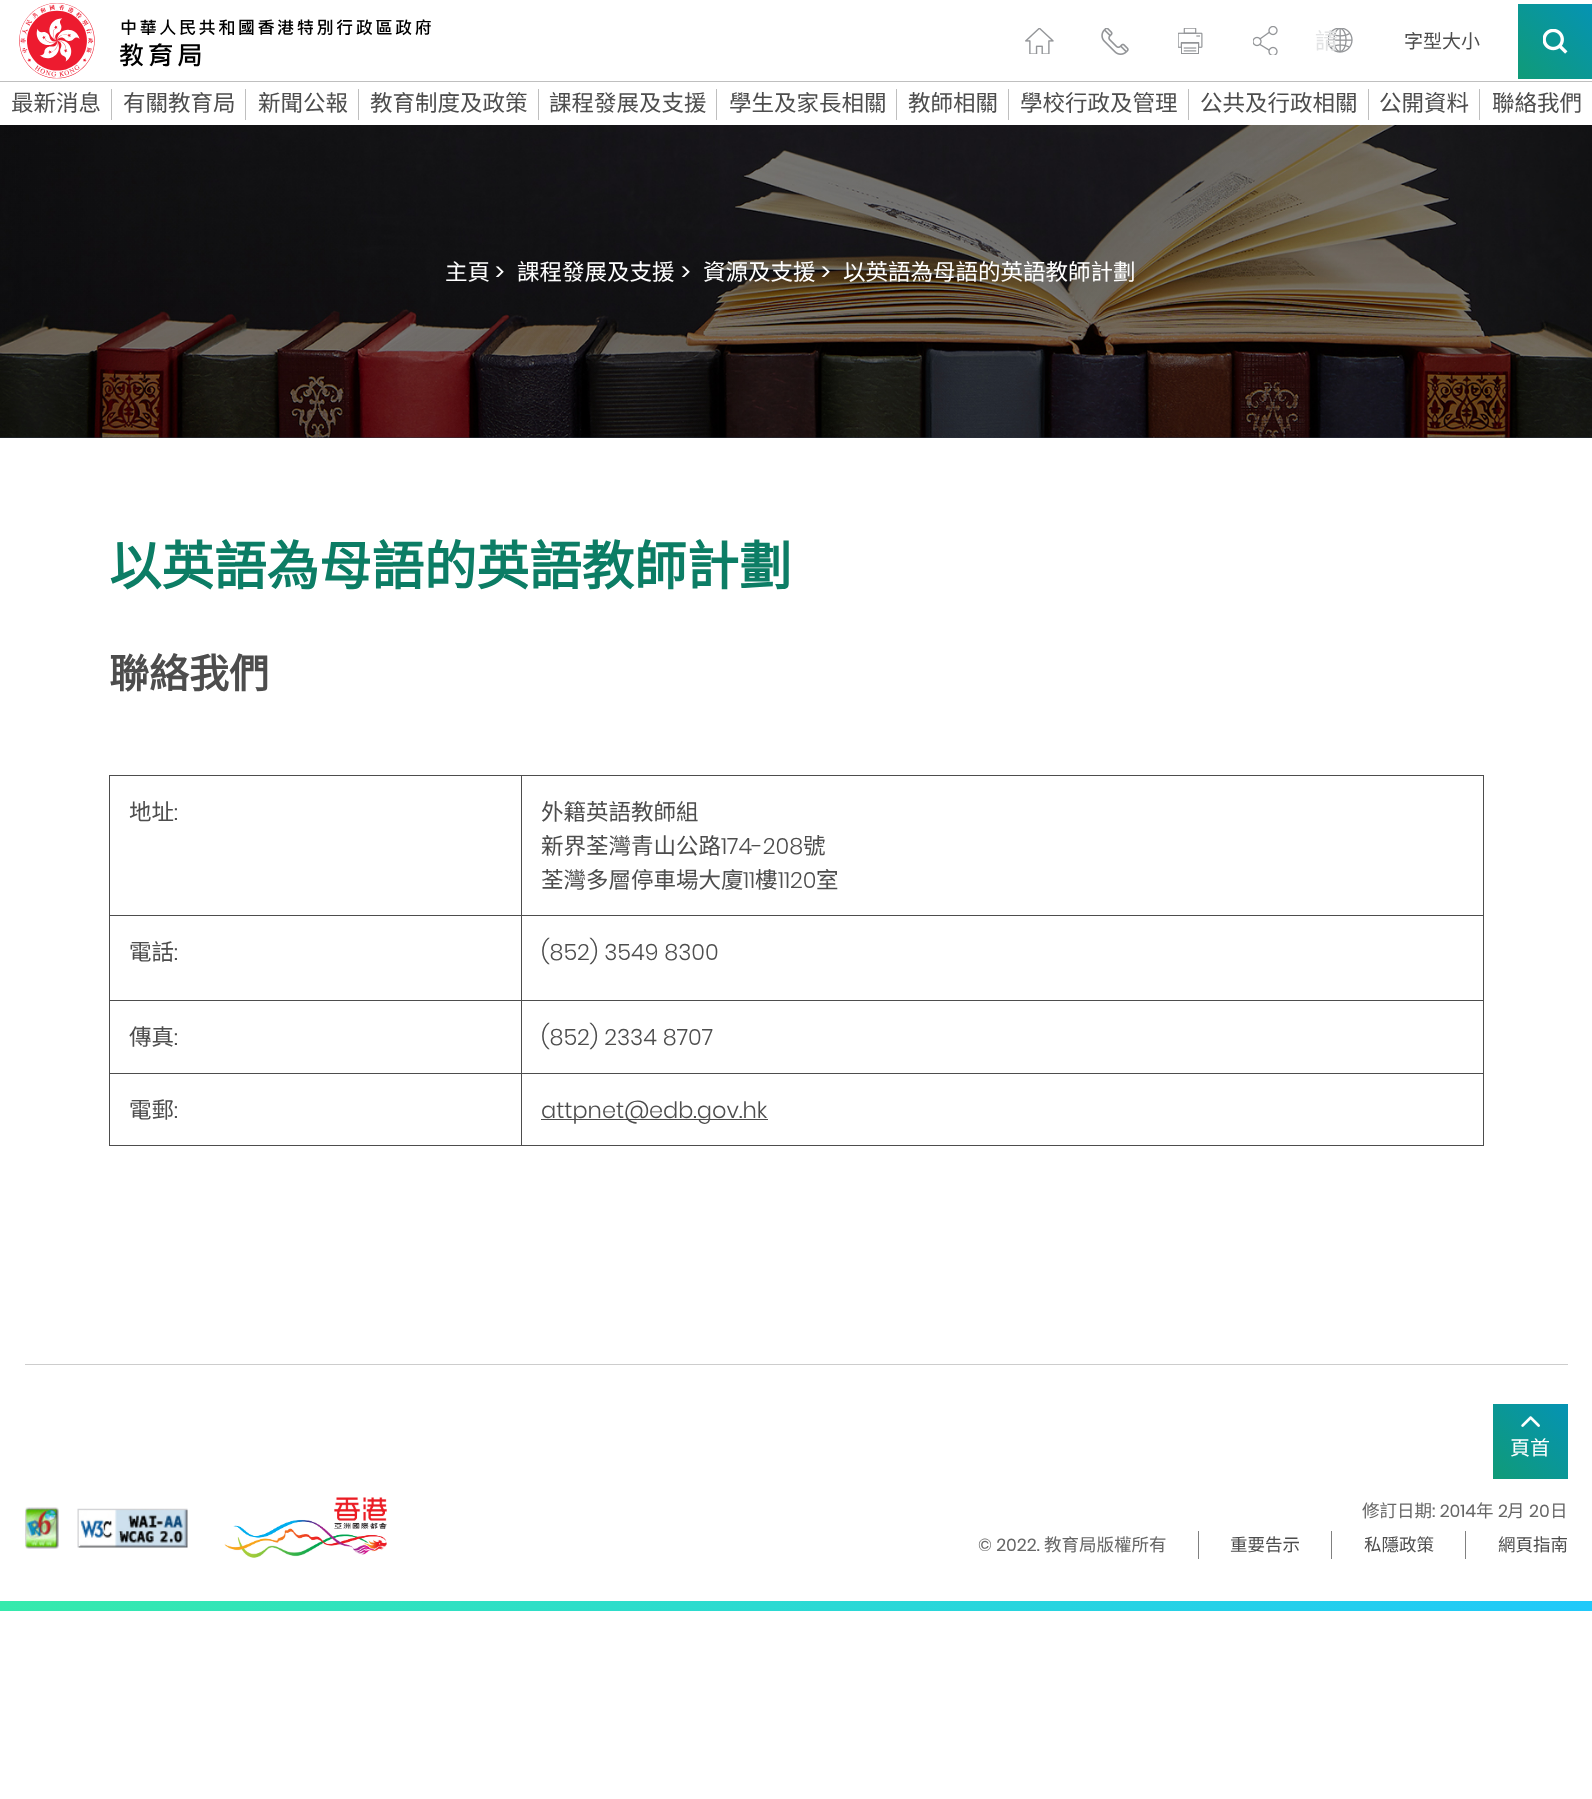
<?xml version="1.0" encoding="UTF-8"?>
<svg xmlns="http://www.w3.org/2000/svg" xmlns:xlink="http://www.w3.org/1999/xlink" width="1592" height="1799">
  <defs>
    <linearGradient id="g1" gradientUnits="userSpaceOnUse" x1="1518" y1="79" x2="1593" y2="3.7"><stop offset="0" stop-color="#109b77" /><stop offset="1" stop-color="#0593b4" /></linearGradient>
    <linearGradient id="g2" gradientUnits="userSpaceOnUse" x1="1493" y1="1479" x2="1568" y2="1404"><stop offset="0" stop-color="#109b77" /><stop offset="1" stop-color="#0593b4" /></linearGradient>
    <linearGradient id="g3" gradientUnits="userSpaceOnUse" x1="0" y1="1606" x2="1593" y2="1606"><stop offset="0" stop-color="#35eaac" /><stop offset="1" stop-color="#20c9fa" /></linearGradient>
  </defs>
  <rect width="100%" height="100%" fill="#ffffff" />
  <rect y="81" width="1592" height="1" fill="#bfbfbf" />
  <image x="19" y="3" width="412" height="76" xlink:href="image1.png" />
  <image x="1025" y="28" width="29" height="26" xlink:href="image2.png" />
  <image x="1101" y="28" width="28" height="27" xlink:href="image3.png" />
  <image x="1178" y="28" width="25" height="26" xlink:href="image4.png" />
  <image x="1253" y="26" width="25" height="29" xlink:href="image5.png" />
  <image x="1328" y="28" width="25" height="25" xlink:href="image6.png" />
  <rect x="1518" y="4" width="74" height="75" fill="url(#g1)" />
  <image x="1543" y="29" width="25" height="25" xlink:href="image7.png" />
  <rect x="111" y="89" width="1" height="31" fill="#bfbfbf" />
  <rect x="245" y="89" width="1" height="31" fill="#bfbfbf" />
  <rect x="358" y="89" width="1" height="31" fill="#bfbfbf" />
  <rect x="538" y="89" width="1" height="31" fill="#bfbfbf" />
  <rect x="716" y="89" width="1" height="31" fill="#bfbfbf" />
  <rect x="896" y="89" width="1" height="31" fill="#bfbfbf" />
  <rect x="1008" y="89" width="1" height="31" fill="#bfbfbf" />
  <rect x="1188" y="89" width="1" height="31" fill="#bfbfbf" />
  <rect x="1368" y="89" width="1" height="31" fill="#bfbfbf" />
  <rect x="1479" y="89" width="1" height="31" fill="#bfbfbf" />
  <rect y="437" width="1592" height="1" fill="#2a3340" />
  <image x="0" y="125" width="1592" height="313" xlink:href="image8.png" />
  <rect x="521" y="775" width="963" height="1" fill="#4d4d4d" />
  <rect x="521" y="915" width="963" height="1" fill="#4d4d4d" />
  <rect x="521" y="1000" width="963" height="1" fill="#4d4d4d" />
  <rect x="521" y="1073" width="963" height="1" fill="#4d4d4d" />
  <rect x="1483" y="1073" width="1" height="73" fill="#4d4d4d" />
  <rect x="521" y="1145" width="963" height="1" fill="#4d4d4d" />
  <rect x="521" y="1073" width="1" height="73" fill="#4d4d4d" />
  <rect x="109" y="1073" width="414" height="1" fill="#4d4d4d" />
  <rect x="521" y="1000" width="1" height="74" fill="#4d4d4d" />
  <rect x="109" y="1000" width="414" height="1" fill="#4d4d4d" />
  <rect x="521" y="915" width="1" height="86" fill="#4d4d4d" />
  <rect x="109" y="915" width="414" height="1" fill="#4d4d4d" />
  <rect x="521" y="775" width="1" height="141" fill="#4d4d4d" />
  <rect x="109" y="775" width="414" height="1" fill="#4d4d4d" />
  <rect x="109" y="1145" width="414" height="1" fill="#4d4d4d" />
  <rect x="109" y="1073" width="1" height="73" fill="#4d4d4d" />
  <rect x="109" y="1000" width="1" height="74" fill="#4d4d4d" />
  <rect x="109" y="915" width="1" height="86" fill="#4d4d4d" />
  <rect x="109" y="775" width="1" height="141" fill="#4d4d4d" />
  <rect x="1483" y="1000" width="1" height="74" fill="#4d4d4d" />
  <rect x="1483" y="915" width="1" height="86" fill="#4d4d4d" />
  <rect x="1483" y="775" width="1" height="141" fill="#4d4d4d" />
  <rect x="541" y="1119" width="227" height="1" fill="#4c4c4c" />
  <rect x="25" y="1364" width="1543" height="1" fill="#cdcdcd" />
  <rect x="1493" y="1404" width="75" height="75" fill="url(#g2)" />
  <image x="1521" y="1416" width="19" height="11" xlink:href="image9.png" />
  <image x="25" y="1507" width="34" height="42" xlink:href="image10.png" />
  <image x="77" y="1508" width="111" height="40" xlink:href="image11.png" />
  <image x="224" y="1497" width="163" height="61" xlink:href="image12.png" />
  <rect x="1198" y="1531" width="1" height="28" fill="#808080" />
  <rect x="1331" y="1531" width="1" height="28" fill="#808080" />
  <rect x="1465" y="1531" width="1" height="28" fill="#808080" />
  <rect y="1601" width="1592" height="10" fill="url(#g3)" />
  <text x="1315" y="49" style="font-family: Noto Sans CJK HK; font-size: 22.5px; fill: #e2e3e4">請</text>
  <text x="1404" y="48" style="font-family: Noto Sans CJK HK; font-size: 19px; fill: #4d4d4d">字型大小</text>
  <text x="11" y="111" style="font-family: Noto Sans CJK HK; font-size: 22.5px; fill: #4d4d4d">最新消息</text>
  <text x="123" y="111" style="font-family: Noto Sans CJK HK; font-size: 22.5px; fill: #4d4d4d">有關教育局</text>
  <text x="258" y="111" style="font-family: Noto Sans CJK HK; font-size: 22.5px; fill: #4d4d4d">新聞公報</text>
  <text x="370" y="111" style="font-family: Noto Sans CJK HK; font-size: 22.5px; fill: #4d4d4d">教育制度及政策</text>
  <text x="549" y="111" style="font-family: Noto Sans CJK HK; font-size: 22.5px; fill: #4d4d4d">課程發展及支援</text>
  <text x="729" y="111" style="font-family: Noto Sans CJK HK; font-size: 22.5px; fill: #4d4d4d">學生及家長相關</text>
  <text x="908" y="111" style="font-family: Noto Sans CJK HK; font-size: 22.5px; fill: #4d4d4d">教師相關</text>
  <text x="1020" y="111" style="font-family: Noto Sans CJK HK; font-size: 22.5px; fill: #4d4d4d">學校行政及管理</text>
  <text x="1200" y="111" style="font-family: Noto Sans CJK HK; font-size: 22.5px; fill: #4d4d4d">公共及行政相關</text>
  <text x="1379" y="111" style="font-family: Noto Sans CJK HK; font-size: 22.5px; fill: #4d4d4d">公開資料</text>
  <text x="1492" y="111" style="font-family: Noto Sans CJK HK; font-size: 22.5px; fill: #4d4d4d">聯絡我們</text>
  <text x="445" y="280" style="font-family: Noto Sans CJK HK; font-size: 22.5px; fill: #ffffff">主頁</text>
  <text x="495" y="280" style="font-family: Poppins; font-size: 22.5px; fill: #ffffff">&gt;</text>
  <text x="517" y="280" style="font-family: Noto Sans CJK HK; font-size: 22.5px; fill: #ffffff">課程發展及支援</text>
  <text x="681" y="280" style="font-family: Poppins; font-size: 22.5px; fill: #ffffff">&gt;</text>
  <text x="703" y="280" style="font-family: Noto Sans CJK HK; font-size: 22.5px; fill: #ffffff">資源及支援</text>
  <text x="821" y="280" style="font-family: Poppins; font-size: 22.5px; fill: #ffffff">&gt;</text>
  <text x="843" y="280" style="font-family: Noto Sans CJK HK; font-size: 22.5px; fill: #ffffff">以英語為母語的英語教師計劃</text>
  <text x="109" y="585" style="font-family: Noto Sans CJK HK; font-size: 52.5px; font-weight: bold; fill: #0c7d65">以英語為母語的英語教師計劃</text>
  <text x="109" y="688" style="font-family: Noto Sans CJK HK; font-size: 40px; font-weight: bold; fill: #4d4d4d">聯絡我們</text>
  <text x="129" y="820" style="font-family: Noto Sans CJK HK; font-size: 22.5px; fill: #4d4d4d">地址</text>
  <text x="174" y="820" style="font-family: Poppins; font-size: 22.5px; font-weight: 300; fill: #4d4d4d">:</text>
  <text x="541" y="820" style="font-family: Noto Sans CJK HK; font-size: 22.5px; fill: #4d4d4d">外籍英語教師組</text>
  <text x="541" y="854" style="font-family: Noto Sans CJK HK; font-size: 22.5px; fill: #4d4d4d">新界荃灣青山公路</text>
  <text x="721" y="854" style="font-family: Poppins; font-size: 22.5px; font-weight: 300; fill: #4d4d4d">174-208</text>
  <text x="803" y="854" style="font-family: Noto Sans CJK HK; font-size: 22.5px; fill: #4d4d4d">號</text>
  <text x="541" y="888" style="font-family: Noto Sans CJK HK; font-size: 22.5px; fill: #4d4d4d">荃灣多層停車場大廈</text>
  <text x="743" y="888" style="font-family: Poppins; font-size: 22.5px; font-weight: 300; fill: #4d4d4d">11</text>
  <text x="755" y="888" style="font-family: Noto Sans CJK HK; font-size: 22.5px; fill: #4d4d4d">樓</text>
  <text x="778" y="888" style="font-family: Poppins; font-size: 22.5px; font-weight: 300; fill: #4d4d4d">1120</text>
  <text x="816" y="888" style="font-family: Noto Sans CJK HK; font-size: 22.5px; fill: #4d4d4d">室</text>
  <text x="129" y="960" style="font-family: Noto Sans CJK HK; font-size: 22.5px; fill: #4d4d4d">電話</text>
  <text x="174" y="960" style="font-family: Poppins; font-size: 22.5px; font-weight: 300; fill: #4d4d4d">:</text>
  <text x="541" y="960" style="font-family: Poppins; font-size: 22.5px; font-weight: 300; fill: #4d4d4d">(852) 3549 8300</text>
  <text x="129" y="1045" style="font-family: Noto Sans CJK HK; font-size: 22.5px; fill: #4d4d4d">傳真</text>
  <text x="174" y="1045" style="font-family: Poppins; font-size: 22.5px; font-weight: 300; fill: #4d4d4d">:</text>
  <text x="541" y="1045" style="font-family: Poppins; font-size: 22.5px; font-weight: 300; fill: #4d4d4d">(852) 2334 8707</text>
  <text x="129" y="1118" style="font-family: Noto Sans CJK HK; font-size: 22.5px; fill: #4d4d4d">電郵</text>
  <text x="174" y="1118" style="font-family: Poppins; font-size: 22.5px; font-weight: 300; fill: #4d4d4d">:</text>
  <text x="541" y="1118" style="font-family: Poppins; font-size: 22.5px; font-weight: 300; fill: #4d4d4d">attpnet@edb.gov.hk</text>
  <text x="1510" y="1455" style="font-family: Noto Sans CJK HK; font-size: 20px; fill: #ffffff">頁首</text>
  <text x="1362" y="1517" style="font-family: Noto Sans CJK HK; font-size: 17.5px; fill: #666666">修訂日期</text>
  <text x="1432" y="1517" style="font-family: Poppins; font-size: 17.5px; fill: #666666">: 2014</text>
  <text x="1476" y="1517" style="font-family: Noto Sans CJK HK; font-size: 17.5px; fill: #666666">年</text>
  <text x="1498" y="1517" style="font-family: Poppins; font-size: 17.5px; fill: #666666">2</text>
  <text x="1507" y="1517" style="font-family: Noto Sans CJK HK; font-size: 17.5px; fill: #666666">月</text>
  <text x="1529" y="1517" style="font-family: Poppins; font-size: 17.5px; fill: #666666">20</text>
  <text x="1550" y="1517" style="font-family: Noto Sans CJK HK; font-size: 17.5px; fill: #666666">日</text>
  <text x="978" y="1551" style="font-family: Poppins; font-size: 17.5px; fill: #666666">© 2022.</text>
  <text x="1044" y="1551" style="font-family: Noto Sans CJK HK; font-size: 17.5px; fill: #666666">教育局版權所有</text>
  <text x="1230" y="1551" style="font-family: Noto Sans CJK HK; font-size: 17.5px; fill: #4d4d4d">重要告示</text>
  <text x="1364" y="1551" style="font-family: Noto Sans CJK HK; font-size: 17.5px; fill: #4d4d4d">私隱政策</text>
  <text x="1498" y="1551" style="font-family: Noto Sans CJK HK; font-size: 17.5px; fill: #4d4d4d">網頁指南</text>
</svg>
